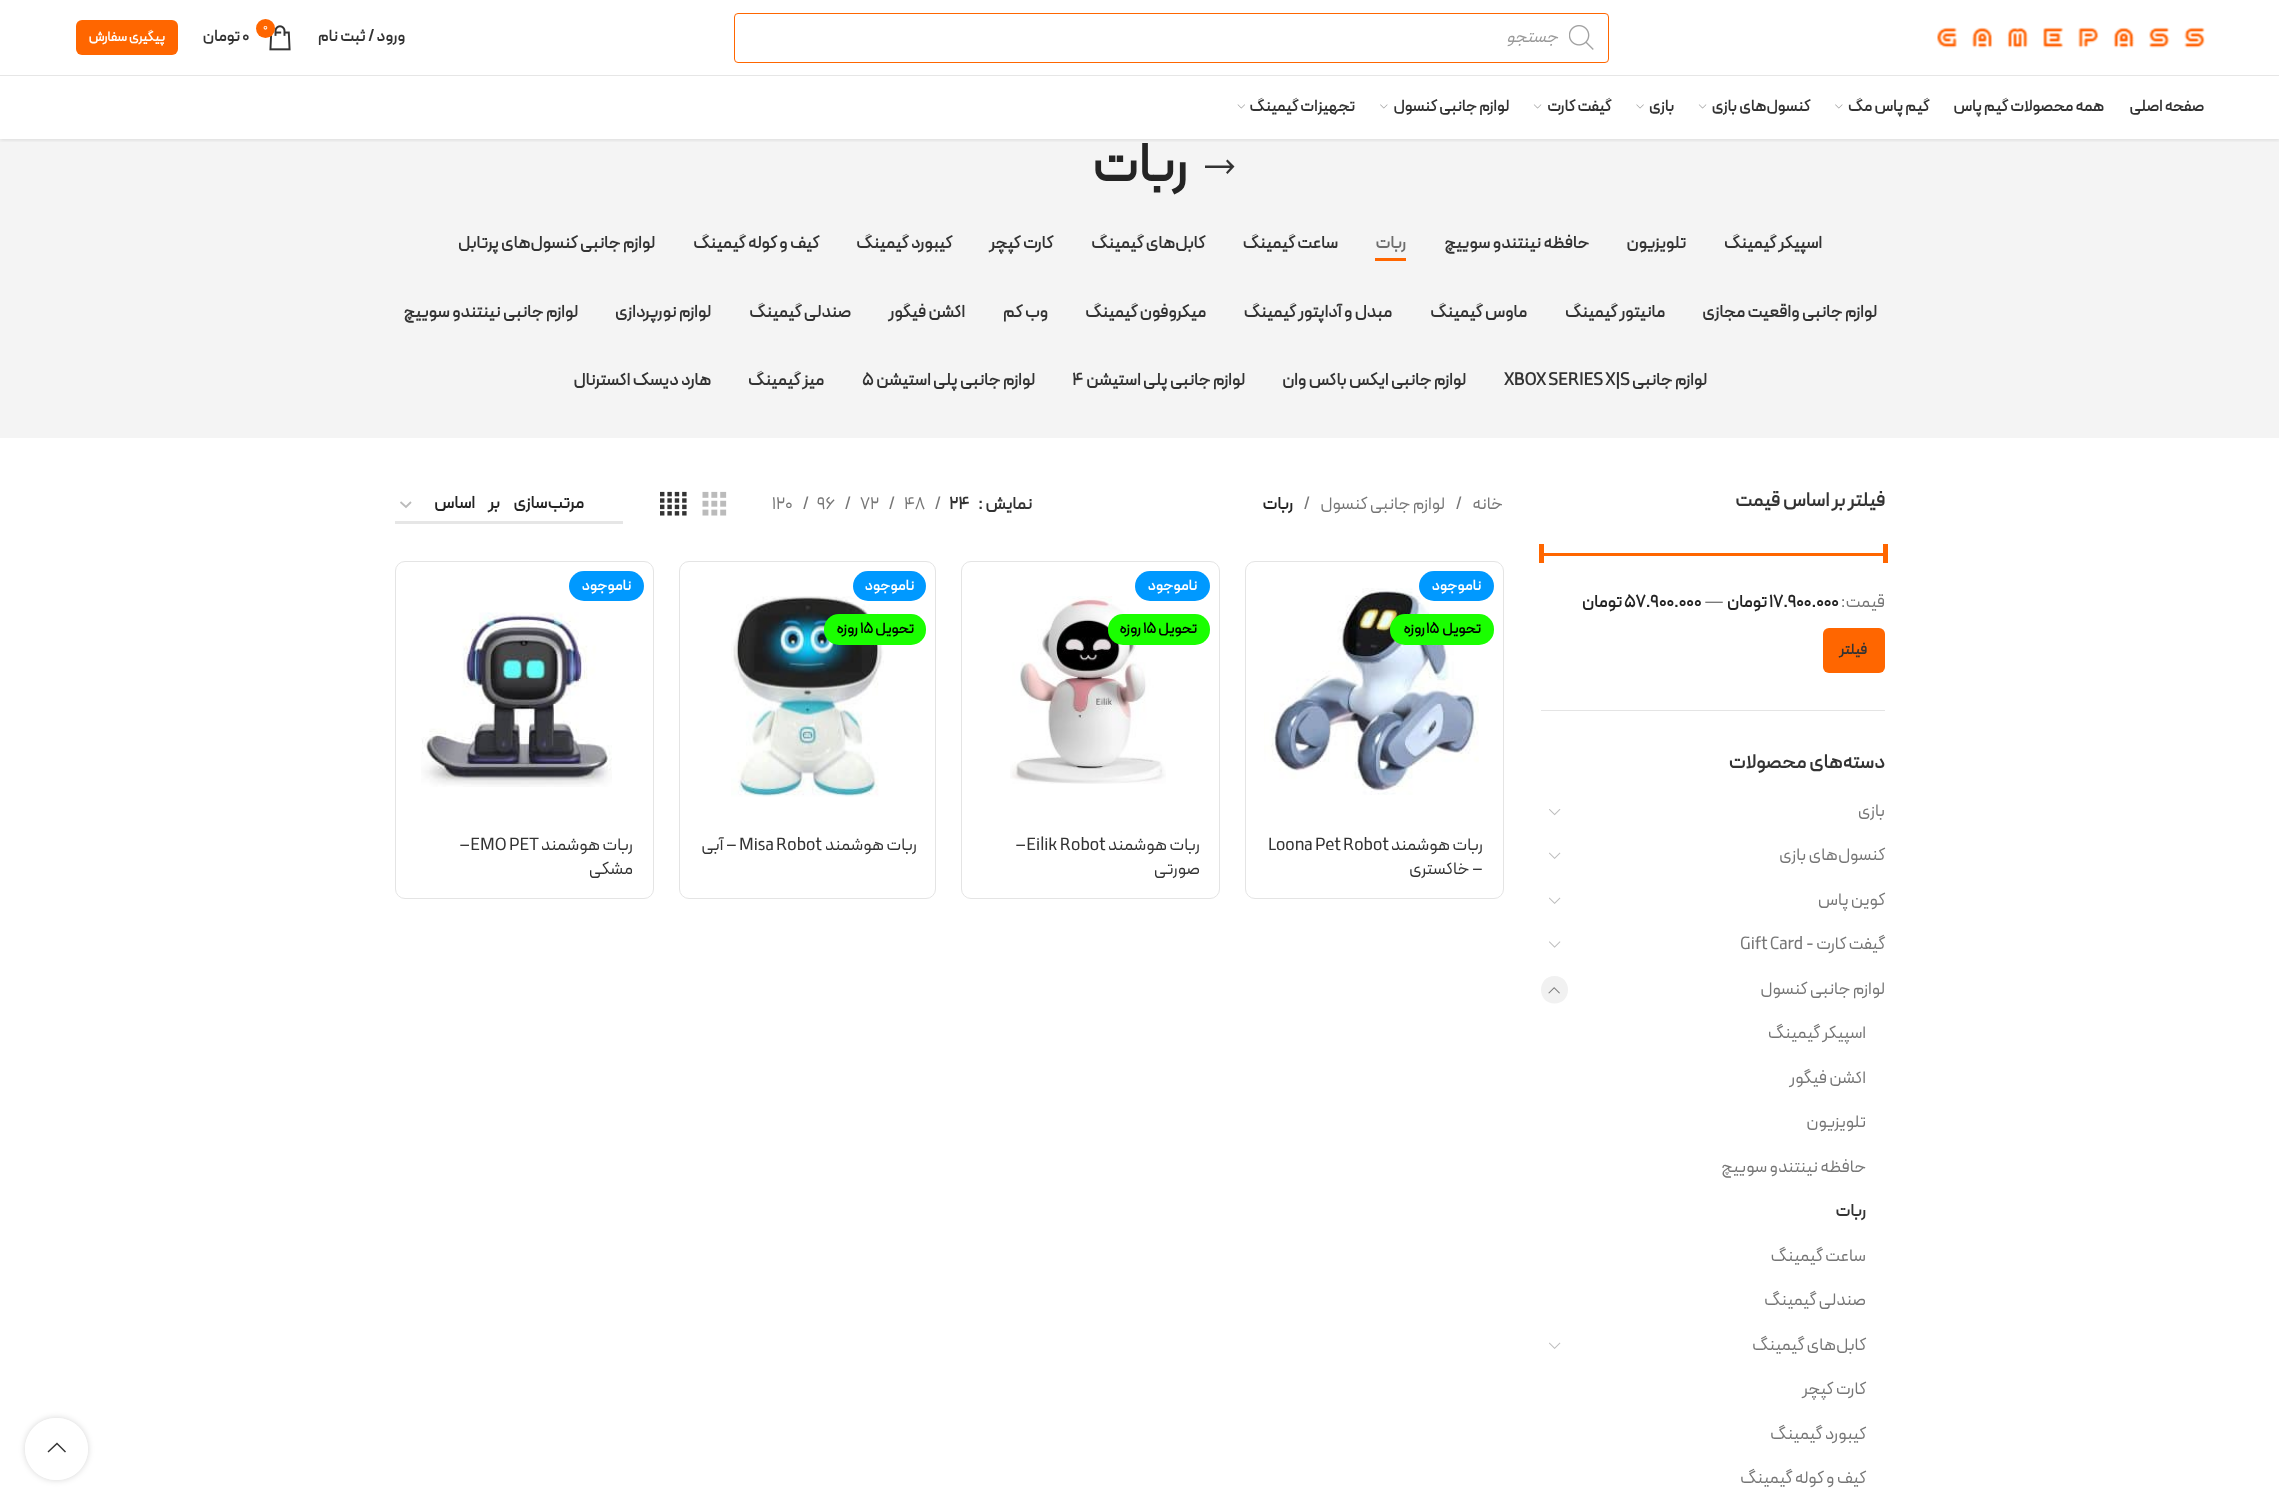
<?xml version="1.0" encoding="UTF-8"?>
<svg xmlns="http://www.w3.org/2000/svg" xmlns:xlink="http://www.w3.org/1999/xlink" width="2279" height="1504">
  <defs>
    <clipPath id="clip1"><rect x="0" y="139" width="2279" height="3" /></clipPath>
    <clipPath id="clip2"><path d="M 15 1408 h 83 v 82 h -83 z m 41 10 h 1 c 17 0 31 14 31 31 c 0 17 -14 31 -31 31 h -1 c -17 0 -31 -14 -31 -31 c 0 -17 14 -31 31 -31 z" clip-rule="evenodd" /></clipPath>
  </defs>
  <rect width="100%" height="100%" fill="#ffffff" />
  <rect y="139" width="2279" height="299" fill="#f4f4f4" />
  <g clip-path="url(#clip1)">
    <rect y="1" width="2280" height="139" fill="#000000" fill-opacity="0.1" filter="blur(2px)" />
  </g>
  <rect y="75" width="2279" height="1" fill="#e6e6e6" />
  <image x="1937" y="27" width="268" height="21" xlink:href="image1.png" />
  <rect x="734.5" y="13.5" width="874" height="49" rx="3.5" fill="none" stroke="#ff6600" />
  <image x="1569" y="25" width="25" height="25" xlink:href="image2.png" />
  <image x="269" y="25" width="22" height="26" xlink:href="image3.png" />
  <circle cx="265.5" cy="28.5" r="9.5" fill="#ff6600" />
  <rect x="76" y="20" width="102" height="35" rx="6" fill="#ff6600" />
  <rect y="138" width="2279" height="1" fill="#ffffff" />
  <image x="1835" y="104" width="8" height="5" xlink:href="image4.png" />
  <image x="1698" y="104" width="9" height="5" xlink:href="image5.png" />
  <image x="1636" y="104" width="8" height="5" xlink:href="image6.png" />
  <image x="1533" y="104" width="9" height="5" xlink:href="image5.png" />
  <image x="1380" y="104" width="8" height="5" xlink:href="image4.png" />
  <image x="1237" y="104" width="8" height="5" xlink:href="image7.png" />
  <path d="M 1234.5 166.5 l -7 -7 l -1.5 1.5 l 4 4.5 h -25 v 2.5 h 25 l -4 4.5 l 1.5 1.5 z" fill="#333333" />
  <rect x="1375" y="258" width="31" height="3" fill="#ff6600" />
  <rect x="1541" y="710" width="344" height="1" fill="#e4e4e4" />
  <rect x="1541" y="553" width="344" height="3" fill="#ff6600" />
  <rect x="1883" y="544" width="5" height="19" fill="#ff6600" />
  <rect x="1539" y="544" width="5" height="19" fill="#ff6600" />
  <rect x="1823" y="628" width="62" height="45" rx="6" fill="#ff6600" />
  <image x="1549" y="809" width="12" height="7" xlink:href="image8.png" />
  <image x="1549" y="852" width="12" height="7" xlink:href="image9.png" />
  <image x="1549" y="897" width="12" height="7" xlink:href="image9.png" />
  <image x="1549" y="941" width="12" height="7" xlink:href="image10.png" />
  <path d="M 1554.5 1003.5 c -18 0 -18 -27.5 0 -27.5 c 18 0 18 27.5 0 27.5 z" fill="#f1f1f1" />
  <image x="1548" y="987" width="12" height="7" xlink:href="image11.png" />
  <image x="1549" y="1342" width="12" height="7" xlink:href="image9.png" />
  <image x="702" y="491" width="25" height="25" xlink:href="image12.png" />
  <image x="660" y="491" width="27" height="25" xlink:href="image13.png" />
  <path d="M 400.5 502 l 5.5 5 l 5 -5" fill="none" stroke="#bbbbbb" stroke-width="1.8" />
  <rect x="395" y="521" width="228" height="3" fill="#e6e6e6" />
  <rect x="1245.5" y="561.5" width="258" height="337" rx="9.5" fill="none" stroke="#e4e4e4" />
  <image x="1264" y="588" width="215" height="207" xlink:href="image14.png" />
  <rect x="1419" y="571" width="75" height="30" rx="15" fill="#0099ff" />
  <rect x="1390" y="614" width="104" height="31" rx="15" fill="#1aff00" />
  <rect x="961.5" y="561.5" width="258" height="337" rx="9.5" fill="none" stroke="#e4e4e4" />
  <image x="1010" y="596" width="156" height="188" xlink:href="image15.png" />
  <rect x="1135" y="571" width="75" height="30" rx="15" fill="#0099ff" />
  <rect x="1108" y="614" width="102" height="31" rx="15" fill="#1aff00" />
  <rect x="679.5" y="561.5" width="256" height="337" rx="9.5" fill="none" stroke="#e4e4e4" />
  <image x="731" y="596" width="153" height="201" xlink:href="image16.png" />
  <rect x="853" y="571" width="73" height="30" rx="15" fill="#0099ff" />
  <rect x="824" y="614" width="102" height="31" rx="15" fill="#1aff00" />
  <rect x="395.5" y="561.5" width="258" height="337" rx="9.5" fill="none" stroke="#e4e4e4" />
  <rect x="569" y="571" width="75" height="30" rx="15" fill="#0099ff" />
  <image x="421" y="612" width="191" height="175" xlink:href="image17.png" />
  <g clip-path="url(#clip2)">
    <rect x="25" y="1418" width="63" height="62" rx="31" fill="#000000" fill-opacity="0.17" filter="blur(3px)" />
  </g>
  <rect x="25" y="1418" width="63" height="62" rx="31" fill="#ffffff" fill-opacity="0.9" />
  <path d="M 65 1452.5 l 1 -1 l -9 -9 l -9.5 9 l 1 1 l 8.5 -8 z" fill="#333333" />
  <text x="1558" y="42" style="font-family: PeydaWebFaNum; font-size: 17.5px; font-style: italic; direction: rtl; fill: #999999">جستجو</text>
  <text x="405" y="41" style="font-family: PeydaWebFaNum; font-size: 16.25px; font-weight: bold; direction: rtl; fill: #333333">ورود / ثبت نام</text>
  <text x="263" y="30" style="font-family: PeydaWebFaNum; font-size: 11px; fill: #ffffff">0</text>
  <text x="242" y="41" style="font-family: PeydaWebFaNum; font-size: 16.25px; font-weight: bold; fill: #333333">0</text>
  <text x="240" y="41" style="font-family: PeydaWebFaNum; font-size: 16.25px; font-weight: bold; direction: rtl; fill: #333333">تومان</text>
  <text x="165" y="41" style="font-family: PeydaWebFaNum; font-size: 13.75px; font-weight: bold; direction: rtl; fill: #ffffff">پیگیری سفارش</text>
  <text x="2204" y="111" style="font-family: PeydaWebFaNum; font-size: 16.25px; font-weight: bold; direction: rtl; fill: #333333">صفحه اصلی</text>
  <text x="2104" y="111" style="font-family: PeydaWebFaNum; font-size: 16.25px; font-weight: bold; direction: rtl; fill: #333333">همه محصولات گیم پاس</text>
  <text x="1929" y="111" style="font-family: PeydaWebFaNum; font-size: 16.25px; font-weight: bold; direction: rtl; fill: #333333">گیم پاس مگ</text>
  <text x="1810" y="111" style="font-family: PeydaWebFaNum; font-size: 16.25px; font-weight: bold; direction: rtl; fill: #333333">کنسول‌های بازی</text>
  <text x="1674" y="111" style="font-family: PeydaWebFaNum; font-size: 16.25px; font-weight: bold; direction: rtl; fill: #333333">بازی</text>
  <text x="1611" y="111" style="font-family: PeydaWebFaNum; font-size: 16.25px; font-weight: bold; direction: rtl; fill: #333333">گیفت کارت</text>
  <text x="1509" y="111" style="font-family: PeydaWebFaNum; font-size: 16.25px; font-weight: bold; direction: rtl; fill: #333333">لوازم جانبی کنسول</text>
  <text x="1355" y="111" style="font-family: PeydaWebFaNum; font-size: 16.25px; font-weight: bold; direction: rtl; fill: #333333">تجهیزات گیمینگ</text>
  <text x="1188" y="181" style="font-family: PeydaWebFaNum; font-size: 55px; font-weight: bold; direction: rtl; fill: #242424">ربات</text>
  <text x="1822" y="248" style="font-family: PeydaWebFaNum; font-size: 17.5px; font-weight: bold; direction: rtl; fill: #333333">اسپیکر گیمینگ</text>
  <text x="1686" y="248" style="font-family: PeydaWebFaNum; font-size: 17.5px; font-weight: bold; direction: rtl; fill: #333333">تلویزیون</text>
  <text x="1589" y="248" style="font-family: PeydaWebFaNum; font-size: 17.5px; font-weight: bold; direction: rtl; fill: #333333">حافظه نینتندو سوییچ</text>
  <text x="1406" y="248" style="font-family: PeydaWebFaNum; font-size: 17.5px; font-weight: bold; direction: rtl; fill: #6d6d6d">ربات</text>
  <text x="1338" y="248" style="font-family: PeydaWebFaNum; font-size: 17.5px; font-weight: bold; direction: rtl; fill: #333333">ساعت گیمینگ</text>
  <text x="1205" y="248" style="font-family: PeydaWebFaNum; font-size: 17.5px; font-weight: bold; direction: rtl; fill: #333333">کابل‌های گیمینگ</text>
  <text x="1053" y="248" style="font-family: PeydaWebFaNum; font-size: 17.5px; font-weight: bold; direction: rtl; fill: #333333">کارت کپچر</text>
  <text x="952" y="248" style="font-family: PeydaWebFaNum; font-size: 17.5px; font-weight: bold; direction: rtl; fill: #333333">کیبورد گیمینگ</text>
  <text x="819" y="248" style="font-family: PeydaWebFaNum; font-size: 17.5px; font-weight: bold; direction: rtl; fill: #333333">کیف و کوله گیمینگ</text>
  <text x="655" y="248" style="font-family: PeydaWebFaNum; font-size: 17.5px; font-weight: bold; direction: rtl; fill: #333333">لوازم جانبی کنسول‌های پرتابل</text>
  <text x="1877" y="317" style="font-family: PeydaWebFaNum; font-size: 17.5px; font-weight: bold; direction: rtl; fill: #333333">لوازم جانبی واقعیت مجازی</text>
  <text x="1665" y="317" style="font-family: PeydaWebFaNum; font-size: 17.5px; font-weight: bold; direction: rtl; fill: #333333">مانیتور گیمینگ</text>
  <text x="1527" y="317" style="font-family: PeydaWebFaNum; font-size: 17.5px; font-weight: bold; direction: rtl; fill: #333333">ماوس گیمینگ</text>
  <text x="1392" y="317" style="font-family: PeydaWebFaNum; font-size: 17.5px; font-weight: bold; direction: rtl; fill: #333333">مبدل و آداپتور گیمینگ</text>
  <text x="1206" y="317" style="font-family: PeydaWebFaNum; font-size: 17.5px; font-weight: bold; direction: rtl; fill: #333333">میکروفون گیمینگ</text>
  <text x="1048" y="317" style="font-family: PeydaWebFaNum; font-size: 17.5px; font-weight: bold; direction: rtl; fill: #333333">وب کم</text>
  <text x="965" y="317" style="font-family: PeydaWebFaNum; font-size: 17.5px; font-weight: bold; direction: rtl; fill: #333333">اکشن فیگور</text>
  <text x="851" y="317" style="font-family: PeydaWebFaNum; font-size: 17.5px; font-weight: bold; direction: rtl; fill: #333333">صندلی گیمینگ</text>
  <text x="711" y="317" style="font-family: PeydaWebFaNum; font-size: 17.5px; font-weight: bold; direction: rtl; fill: #333333">لوازم نورپردازی</text>
  <text x="578" y="317" style="font-family: PeydaWebFaNum; font-size: 17.5px; font-weight: bold; direction: rtl; fill: #333333">لوازم جانبی نینتندو سوییچ</text>
  <text x="1707" y="385" style="font-family: PeydaWebFaNum; font-size: 17.5px; font-weight: bold; direction: rtl; fill: #333333">لوازم جانبی</text>
  <text x="1504" y="385" style="font-family: PeydaWebFaNum; font-size: 17.5px; font-weight: bold; fill: #333333">XBOX SERIES X|S</text>
  <text x="1466" y="385" style="font-family: PeydaWebFaNum; font-size: 17.5px; font-weight: bold; direction: rtl; fill: #333333">لوازم جانبی ایکس باکس وان</text>
  <text x="1245" y="385" style="font-family: PeydaWebFaNum; font-size: 17.5px; font-weight: bold; direction: rtl; fill: #333333">لوازم جانبی پلی استیشن</text>
  <text x="1072" y="385" style="font-family: PeydaWebFaNum; font-size: 17.5px; font-weight: bold; fill: #333333">4</text>
  <text x="1035" y="385" style="font-family: PeydaWebFaNum; font-size: 17.5px; font-weight: bold; direction: rtl; fill: #333333">لوازم جانبی پلی استیشن</text>
  <text x="862" y="385" style="font-family: PeydaWebFaNum; font-size: 17.5px; font-weight: bold; fill: #333333">5</text>
  <text x="824" y="385" style="font-family: PeydaWebFaNum; font-size: 17.5px; font-weight: bold; direction: rtl; fill: #333333">میز گیمینگ</text>
  <text x="711" y="385" style="font-family: PeydaWebFaNum; font-size: 17.5px; font-weight: bold; direction: rtl; fill: #333333">هارد دیسک اکسترنال</text>
  <text x="1885" y="506" style="font-family: PeydaWebFaNum; font-size: 20px; font-weight: bold; direction: rtl; fill: #333333">فیلتر بر اساس قیمت</text>
  <text x="1885" y="607" style="font-family: PeydaWebFaNum; font-size: 17.5px; direction: rtl; fill: #767676">قیمت:</text>
  <text x="1769" y="607" style="font-family: PeydaWebFaNum; font-size: 17.5px; font-weight: bold; fill: #242424">17.900.000</text>
  <text x="1767" y="607" style="font-family: PeydaWebFaNum; font-size: 17.5px; font-weight: bold; direction: rtl; fill: #242424">تومان</text>
  <text x="1704" y="607" style="font-family: PeydaWebFaNum; font-size: 17.5px; fill: #767676">—</text>
  <text x="1624" y="607" style="font-family: PeydaWebFaNum; font-size: 17.5px; font-weight: bold; fill: #242424">57.900.000</text>
  <text x="1622" y="607" style="font-family: PeydaWebFaNum; font-size: 17.5px; font-weight: bold; direction: rtl; fill: #242424">تومان</text>
  <text x="1867" y="654" style="font-family: PeydaWebFaNum; font-size: 15px; font-weight: bold; direction: rtl; fill: #333333">فیلتر</text>
  <text x="1885" y="768" style="font-family: PeydaWebFaNum; font-size: 20px; font-weight: bold; direction: rtl; fill: #333333">دسته‌های محصولات</text>
  <text x="1885" y="816" style="font-family: PeydaWebFaNum; font-size: 17.5px; direction: rtl; fill: #767676">بازی</text>
  <text x="1885" y="860" style="font-family: PeydaWebFaNum; font-size: 17.5px; direction: rtl; fill: #767676">کنسول‌های بازی</text>
  <text x="1885" y="905" style="font-family: PeydaWebFaNum; font-size: 17.5px; direction: rtl; fill: #767676">کوین پاس</text>
  <text x="1885" y="949" style="font-family: PeydaWebFaNum; font-size: 17.5px; direction: rtl; fill: #767676">گیفت کارت -</text>
  <text x="1740" y="949" style="font-family: PeydaWebFaNum; font-size: 17.5px; fill: #767676">Gift Card</text>
  <text x="1885" y="994" style="font-family: PeydaWebFaNum; font-size: 17.5px; direction: rtl; fill: #767676">لوازم جانبی کنسول</text>
  <text x="1866" y="1038" style="font-family: PeydaWebFaNum; font-size: 17.5px; direction: rtl; fill: #767676">اسپیکر گیمینگ</text>
  <text x="1866" y="1083" style="font-family: PeydaWebFaNum; font-size: 17.5px; direction: rtl; fill: #767676">اکشن فیگور</text>
  <text x="1866" y="1127" style="font-family: PeydaWebFaNum; font-size: 17.5px; direction: rtl; fill: #767676">تلویزیون</text>
  <text x="1866" y="1172" style="font-family: PeydaWebFaNum; font-size: 17.5px; direction: rtl; fill: #767676">حافظه نینتندو سوییچ</text>
  <text x="1866" y="1216" style="font-family: PeydaWebFaNum; font-size: 17.5px; font-weight: bold; direction: rtl; fill: #333333">ربات</text>
  <text x="1866" y="1261" style="font-family: PeydaWebFaNum; font-size: 17.5px; direction: rtl; fill: #767676">ساعت گیمینگ</text>
  <text x="1866" y="1305" style="font-family: PeydaWebFaNum; font-size: 17.5px; direction: rtl; fill: #767676">صندلی گیمینگ</text>
  <text x="1866" y="1350" style="font-family: PeydaWebFaNum; font-size: 17.5px; direction: rtl; fill: #767676">کابل‌های گیمینگ</text>
  <text x="1866" y="1394" style="font-family: PeydaWebFaNum; font-size: 17.5px; direction: rtl; fill: #767676">کارت کپچر</text>
  <text x="1866" y="1439" style="font-family: PeydaWebFaNum; font-size: 17.5px; direction: rtl; fill: #767676">کیبورد گیمینگ</text>
  <text x="1866" y="1483" style="font-family: PeydaWebFaNum; font-size: 17.5px; direction: rtl; fill: #767676">کیف و کوله گیمینگ</text>
  <text x="1503" y="509" style="font-family: PeydaWebFaNum; font-size: 17.5px; direction: rtl; fill: #767676">خانه</text>
  <text x="1455" y="509" style="font-family: PeydaWebFaNum; font-size: 17.5px; fill: #767676">/</text>
  <text x="1445" y="509" style="font-family: PeydaWebFaNum; font-size: 17.5px; direction: rtl; fill: #767676">لوازم جانبی کنسول</text>
  <text x="1303" y="509" style="font-family: PeydaWebFaNum; font-size: 17.5px; fill: #767676">/</text>
  <text x="1293" y="509" style="font-family: PeydaWebFaNum; font-size: 17.5px; font-weight: bold; direction: rtl; fill: #242424">ربات</text>
  <text x="1032" y="509" style="font-family: PeydaWebFaNum; font-size: 17.5px; font-weight: bold; direction: rtl; fill: #333333">نمایش</text>
  <text x="978" y="509" style="font-family: PeydaWebFaNum; font-size: 17.5px; font-weight: bold; fill: #333333">:</text>
  <text x="949" y="509" style="font-family: PeydaWebFaNum; font-size: 17.5px; font-weight: bold; fill: #333333">24</text>
  <text x="934" y="509" style="font-family: PeydaWebFaNum; font-size: 17.5px; fill: #767676">/</text>
  <text x="904" y="509" style="font-family: PeydaWebFaNum; font-size: 17.5px; fill: #767676">48</text>
  <text x="888" y="509" style="font-family: PeydaWebFaNum; font-size: 17.5px; fill: #767676">/</text>
  <text x="860" y="509" style="font-family: PeydaWebFaNum; font-size: 17.5px; fill: #767676">72</text>
  <text x="844" y="509" style="font-family: PeydaWebFaNum; font-size: 17.5px; fill: #767676">/</text>
  <text x="817" y="509" style="font-family: PeydaWebFaNum; font-size: 17.5px; fill: #767676">96</text>
  <text x="802" y="509" style="font-family: PeydaWebFaNum; font-size: 17.5px; fill: #767676">/</text>
  <text x="772" y="509" style="font-family: PeydaWebFaNum; font-size: 17.5px; fill: #767676">120</text>
  <text x="584" y="508" word-spacing="11" style="font-family: PeydaWebFaNum; font-size: 17.5px; font-weight: bold; direction: rtl; fill: #242424">مرتب‌سازی بر اساس</text>
  <text x="1481" y="590" style="font-family: PeydaWebFaNum; font-size: 15px; font-weight: bold; direction: rtl; fill: #ffffff">ناموجود</text>
  <text x="1481" y="633" style="font-family: PeydaWebFaNum; font-size: 15px; font-weight: bold; direction: rtl; fill: #000000">تحویل</text>
  <text x="1426" y="633" style="font-family: PeydaWebFaNum; font-size: 15px; font-weight: bold; fill: #000000">15</text>
  <text x="1425" y="633" style="font-family: PeydaWebFaNum; font-size: 15px; font-weight: bold; direction: rtl; fill: #000000">روزه</text>
  <text x="1483" y="850" style="font-family: PeydaWebFaNum; font-size: 17.5px; direction: rtl; fill: #333333">ربات هوشمند</text>
  <text x="1268" y="850" style="font-family: PeydaWebFaNum; font-size: 17.5px; fill: #333333">Loona Pet Robot</text>
  <text x="1483" y="874" style="font-family: PeydaWebFaNum; font-size: 17.5px; direction: rtl; fill: #333333">– خاکستری</text>
  <text x="1197" y="590" style="font-family: PeydaWebFaNum; font-size: 15px; font-weight: bold; direction: rtl; fill: #ffffff">ناموجود</text>
  <text x="1197" y="633" style="font-family: PeydaWebFaNum; font-size: 15px; font-weight: bold; direction: rtl; fill: #000000">تحویل</text>
  <text x="1143" y="633" style="font-family: PeydaWebFaNum; font-size: 15px; font-weight: bold; fill: #000000">15</text>
  <text x="1141" y="633" style="font-family: PeydaWebFaNum; font-size: 15px; font-weight: bold; direction: rtl; fill: #000000">روزه</text>
  <text x="1200" y="850" style="font-family: PeydaWebFaNum; font-size: 17.5px; direction: rtl; fill: #333333">ربات هوشمند</text>
  <text x="1015" y="850" style="font-family: PeydaWebFaNum; font-size: 17.5px; fill: #333333">–Eilik Robot</text>
  <text x="1200" y="874" style="font-family: PeydaWebFaNum; font-size: 17.5px; direction: rtl; fill: #333333">صورتی</text>
  <text x="914" y="590" style="font-family: PeydaWebFaNum; font-size: 15px; font-weight: bold; direction: rtl; fill: #ffffff">ناموجود</text>
  <text x="914" y="633" style="font-family: PeydaWebFaNum; font-size: 15px; font-weight: bold; direction: rtl; fill: #000000">تحویل</text>
  <text x="860" y="633" style="font-family: PeydaWebFaNum; font-size: 15px; font-weight: bold; fill: #000000">15</text>
  <text x="858" y="633" style="font-family: PeydaWebFaNum; font-size: 15px; font-weight: bold; direction: rtl; fill: #000000">روزه</text>
  <text x="917" y="850" style="font-family: PeydaWebFaNum; font-size: 17.5px; direction: rtl; fill: #333333">ربات هوشمند</text>
  <text x="739" y="850" style="font-family: PeydaWebFaNum; font-size: 17.5px; fill: #333333">Misa Robot</text>
  <text x="737" y="850" style="font-family: PeydaWebFaNum; font-size: 17.5px; direction: rtl; fill: #333333">– آبی</text>
  <text x="631" y="590" style="font-family: PeydaWebFaNum; font-size: 15px; font-weight: bold; direction: rtl; fill: #ffffff">ناموجود</text>
  <text x="633" y="850" style="font-family: PeydaWebFaNum; font-size: 17.5px; direction: rtl; fill: #333333">ربات هوشمند</text>
  <text x="459" y="850" style="font-family: PeydaWebFaNum; font-size: 17.5px; fill: #333333">–EMO PET</text>
  <text x="633" y="874" style="font-family: PeydaWebFaNum; font-size: 17.5px; direction: rtl; fill: #333333">مشکی</text>
</svg>
